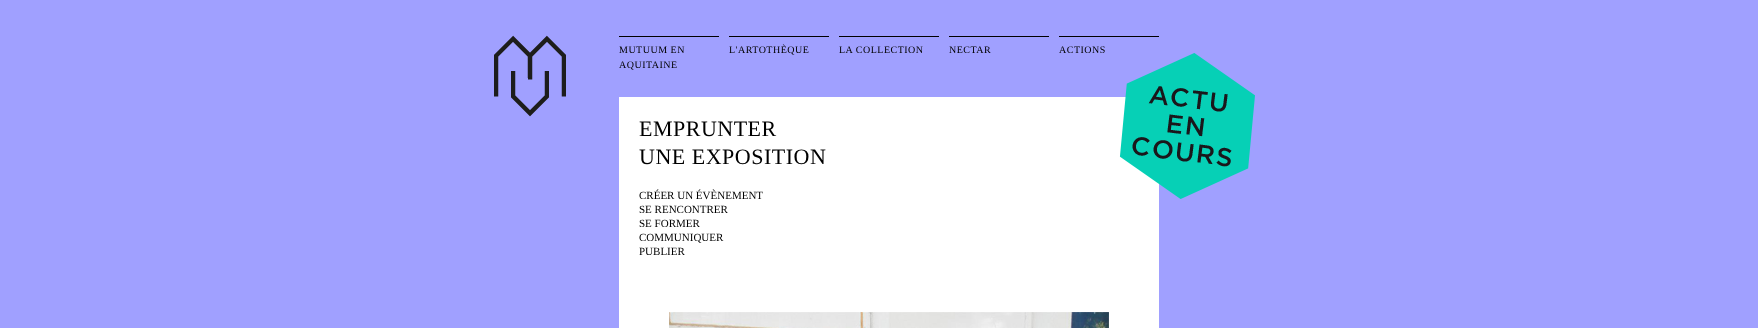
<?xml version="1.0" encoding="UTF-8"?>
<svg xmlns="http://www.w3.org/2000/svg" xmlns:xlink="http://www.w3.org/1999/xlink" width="1758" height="328">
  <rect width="100%" height="100%" fill="#a0a0ff" />
  <image x="494" y="35" width="72" height="82" xlink:href="image1.png" />
  <rect x="619" y="36" width="100" height="1" fill="#000000" />
  <rect x="729" y="36" width="100" height="1" fill="#000000" />
  <rect x="839" y="36" width="100" height="1" fill="#000000" />
  <rect x="949" y="36" width="100" height="1" fill="#000000" />
  <rect x="1059" y="36" width="100" height="1" fill="#000000" />
  <rect x="619" y="97" width="540" height="231" fill="#ffffff" />
  <image x="1119" y="53" width="136" height="146" xlink:href="image2.png" />
  <image x="669" y="312" width="440" height="16" xlink:href="image3.png" />
  <text x="619" y="53" style="font-family: Liberation Serif; font-size: 10px; letter-spacing: 0.5px; fill: #000000">MUTUUM EN</text>
  <text x="619" y="68" style="font-family: Liberation Serif; font-size: 10px; letter-spacing: 0.5px; fill: #000000">AQUITAINE</text>
  <text x="729" y="53" style="font-family: Liberation Serif; font-size: 10px; letter-spacing: 0.5px; fill: #000000">L'ARTOTHÈQUE</text>
  <text x="839" y="53" style="font-family: Liberation Serif; font-size: 10px; letter-spacing: 0.5px; fill: #000000">LA COLLECTION</text>
  <text x="949" y="53" style="font-family: Liberation Serif; font-size: 10px; letter-spacing: 0.5px; fill: #000000">NECTAR</text>
  <text x="1059" y="53" style="font-family: Liberation Serif; font-size: 10px; letter-spacing: 0.5px; fill: #000000">ACTIONS</text>
  <text x="639" y="136" style="font-family: Liberation Serif; font-size: 22px; letter-spacing: 0.5px; fill: #000000">EMPRUNTER</text>
  <text x="639" y="164" style="font-family: Liberation Serif; font-size: 22px; letter-spacing: 0.5px; fill: #000000">UNE EXPOSITION</text>
  <text x="639" y="199" style="font-family: Liberation Serif; font-size: 11px; fill: #000000">CRÉER UN ÉVÈNEMENT</text>
  <text x="639" y="213" style="font-family: Liberation Serif; font-size: 11px; fill: #000000">SE RENCONTRER</text>
  <text x="639" y="227" style="font-family: Liberation Serif; font-size: 11px; fill: #000000">SE FORMER</text>
  <text x="639" y="241" style="font-family: Liberation Serif; font-size: 11px; fill: #000000">COMMUNIQUER</text>
  <text x="639" y="255" style="font-family: Liberation Serif; font-size: 11px; fill: #000000">PUBLIER</text>
</svg>
